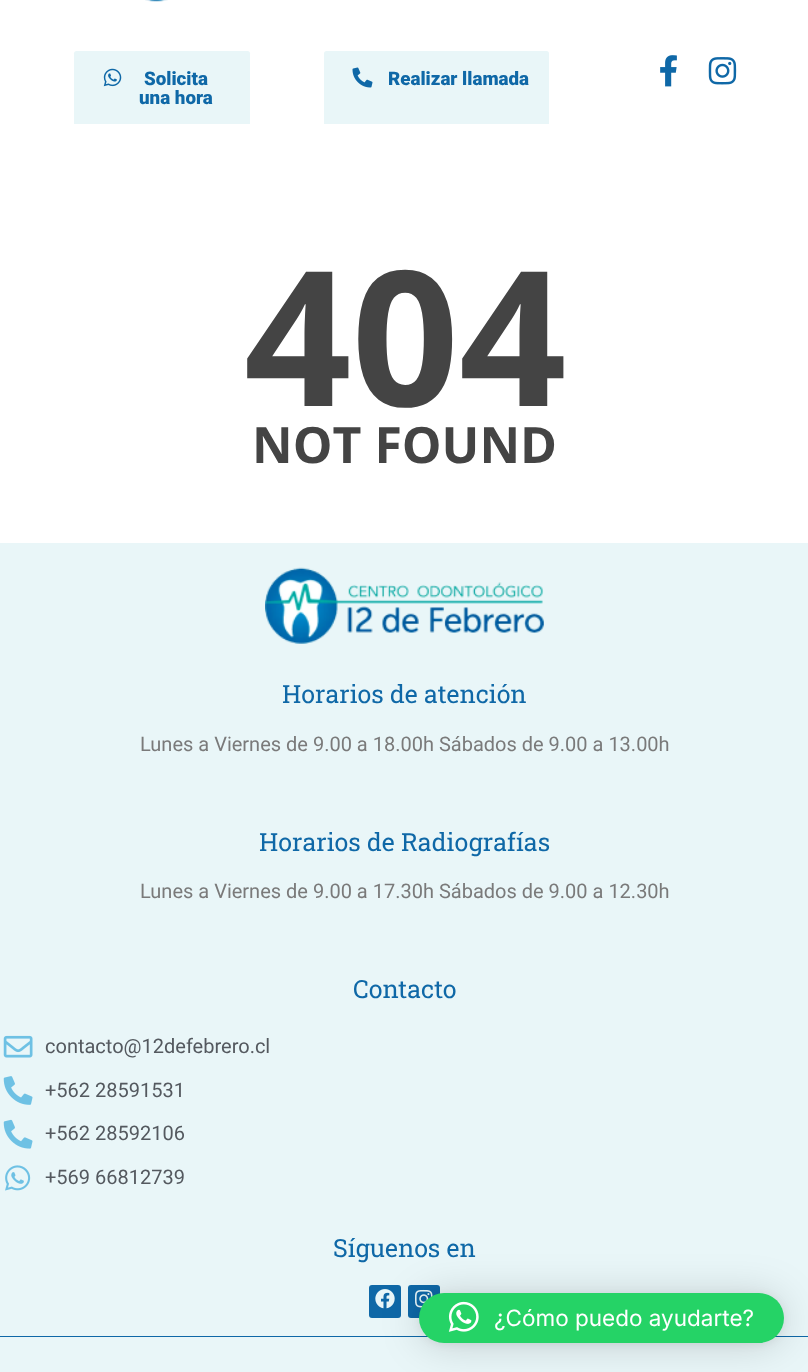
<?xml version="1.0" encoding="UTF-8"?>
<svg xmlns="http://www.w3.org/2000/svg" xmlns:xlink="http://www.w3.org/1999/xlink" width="808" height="1372">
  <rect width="100%" height="100%" fill="#ffffff" />
  <image x="145" y="0" width="23" height="2" xlink:href="image1.png" />
  <rect x="74" y="51" width="176" height="78" rx="2.5" fill="#e9f6f8" />
  <image x="103" y="68" width="19" height="19" xlink:href="image2.png" />
  <rect x="324" y="51" width="225" height="78" rx="2.5" fill="#e9f6f8" />
  <image x="352" y="67" width="21" height="21" xlink:href="image3.png" />
  <image x="660" y="55" width="17" height="32" xlink:href="image4.png" />
  <image x="708" y="57" width="29" height="28" xlink:href="image5.png" />
  <rect x="74" y="124" width="475" height="5" fill="#ffffff" />
  <rect y="543" width="808" height="829" fill="#e9f6f8" />
  <image x="265" y="567" width="279" height="77" xlink:href="image6.png" />
  <image x="3" y="1035" width="30" height="23" xlink:href="image7.png" />
  <image x="3" y="1076" width="30" height="29" xlink:href="image8.png" />
  <image x="3" y="1119" width="30" height="30" xlink:href="image9.png" />
  <image x="5" y="1165" width="26" height="26" xlink:href="image10.png" />
  <rect x="369" y="1285" width="32" height="33" rx="3" fill="#0f68a7" />
  <image x="375" y="1289" width="20" height="20" xlink:href="image11.png" />
  <rect x="408" y="1285" width="32" height="33" rx="3" fill="#0f68a7" />
  <image x="415" y="1289" width="18" height="19" xlink:href="image12.png" />
  <rect y="1336" width="808" height="1" fill="#0f68a7" />
  <rect x="419" y="1295" width="365" height="50" rx="25" fill="#000000" fill-opacity="0.16" filter="blur(20px)" />
  <rect x="419" y="1294" width="365" height="50" rx="25" fill="#000000" fill-opacity="0.06" filter="blur(4px)" />
  <rect x="419" y="1293" width="365" height="50" rx="25" fill="#25d366" />
  <image x="448" y="1301" width="31" height="31" xlink:href="image13.png" />
  <text x="144" y="85" style="font-family: Roboto; font-size: 18.75px; font-weight: 900; fill: #0f68a7">Solicita</text>
  <text x="139" y="104" style="font-family: Roboto; font-size: 18.75px; font-weight: 900; fill: #0f68a7">una hora</text>
  <text x="388" y="85" style="font-family: Roboto; font-size: 18.75px; font-weight: 900; fill: #0f68a7">Realizar llamada</text>
  <text x="244" y="406" style="font-family: Open Sans; font-size: 188px; font-weight: bold; fill: #444444">404</text>
  <text x="252" y="463" style="font-family: Open Sans; font-size: 50px; font-weight: bold; fill: #444444">NOT FOUND</text>
  <text x="282" y="703" style="font-family: Roboto Slab; font-size: 25px; fill: #0f68a7">Horarios de atención</text>
  <text x="140" y="751" style="font-family: Roboto; font-size: 20px; fill: #7a7a7a">Lunes a Viernes de 9.00 a 18.00h Sábados de 9.00 a 13.00h</text>
  <text x="259" y="851" style="font-family: Roboto Slab; font-size: 25px; fill: #0f68a7">Horarios de Radiografías</text>
  <text x="140" y="898" style="font-family: Roboto; font-size: 20px; fill: #7a7a7a">Lunes a Viernes de 9.00 a 17.30h Sábados de 9.00 a 12.30h</text>
  <text x="353" y="998" style="font-family: Roboto Slab; font-size: 25px; fill: #0f68a7">Contacto</text>
  <text x="45" y="1053" style="font-family: Roboto; font-size: 20px; fill: #54595f">contacto@12defebrero.cl</text>
  <text x="45" y="1097" style="font-family: Roboto; font-size: 20px; fill: #54595f">+562 28591531</text>
  <text x="45" y="1140" style="font-family: Roboto; font-size: 20px; fill: #54595f">+562 28592106</text>
  <text x="45" y="1184" style="font-family: Roboto; font-size: 20px; fill: #54595f">+569 66812739</text>
  <text x="333" y="1257" style="font-family: Roboto Slab; font-size: 25px; fill: #0f68a7">Síguenos en</text>
  <text x="494" y="1326" style="font-family: Inter; font-size: 22.5px; fill: #ffffff">¿Cómo puedo ayudarte?</text>
</svg>
